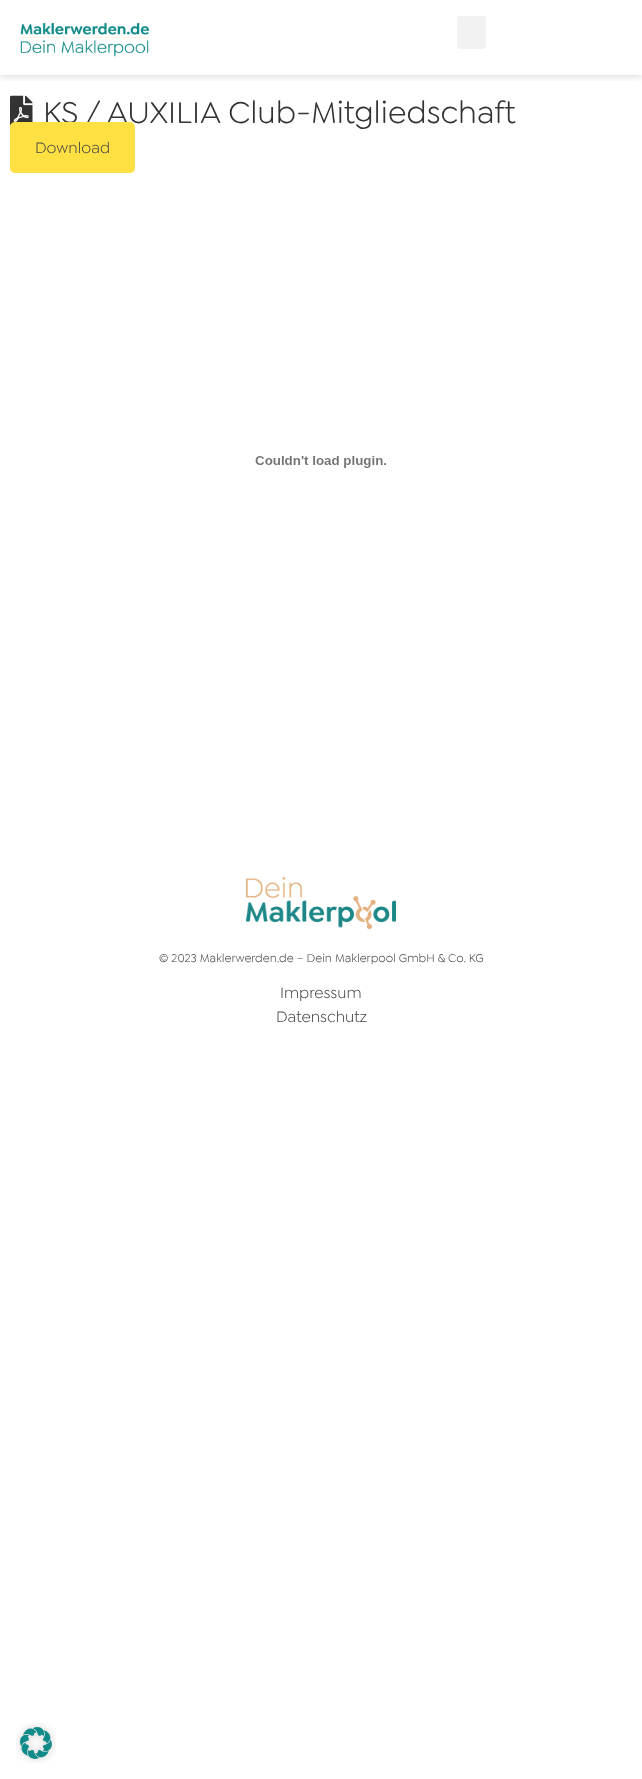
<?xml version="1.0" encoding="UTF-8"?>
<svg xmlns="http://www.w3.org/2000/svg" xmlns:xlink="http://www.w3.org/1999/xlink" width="642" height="1779">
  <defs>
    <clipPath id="clip1"><rect x="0" y="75" width="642" height="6" /></clipPath>
  </defs>
  <rect width="100%" height="100%" fill="#ffffff" />
  <g clip-path="url(#clip1)">
    <rect width="642" height="75" fill="#000000" fill-opacity="0.2" filter="blur(5px)" />
  </g>
  <image x="20" y="22" width="130" height="35" xlink:href="image1.png" />
  <rect x="457" y="16" width="29" height="33" rx="3" fill="#f2f2f2" />
  <image x="10" y="95" width="23" height="31" xlink:href="image2.png" />
  <image x="255" y="456" width="131" height="12" xlink:href="image3.png" />
  <image x="246" y="877" width="150" height="52" xlink:href="image4.png" />
  <image x="16" y="1723" width="40" height="40" xlink:href="image5.png" />
  <text x="43" y="123" style="font-family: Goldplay; font-size: 32px; fill: #333333">KS / AUXILIA Club-Mitgliedschaft</text>
  <rect x="10" y="122" width="125" height="51" rx="5" fill="#fee042" />
  <text x="35" y="153" style="font-family: Goldplay; font-size: 16px; fill: #484848">Download</text>
  <text x="159" y="962" style="font-family: Goldplay; font-size: 12px; fill: #484848">© 2023 Maklerwerden.de – Dein Maklerpool GmbH &amp; Co. KG</text>
  <text x="280" y="998" style="font-family: Goldplay; font-size: 16px; fill: #484848">Impressum</text>
  <text x="276" y="1022" style="font-family: Goldplay; font-size: 16px; fill: #484848">Datenschutz</text>
</svg>
